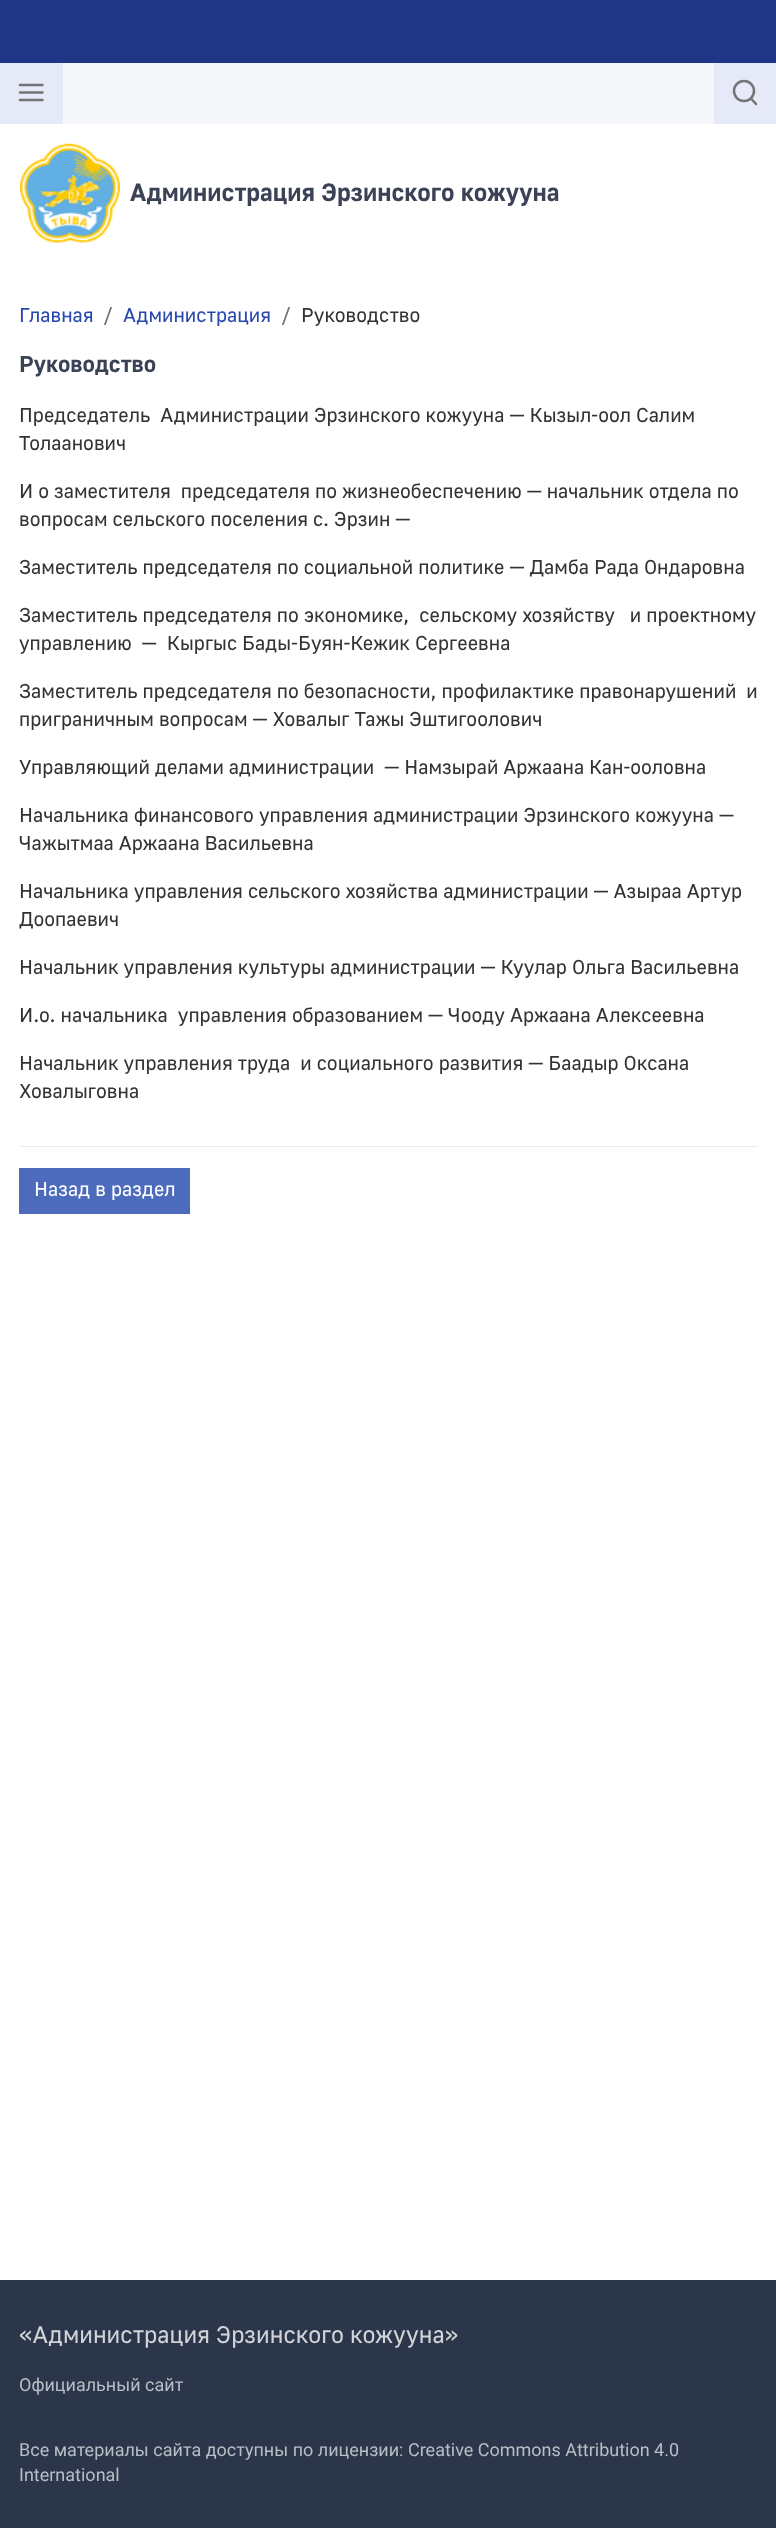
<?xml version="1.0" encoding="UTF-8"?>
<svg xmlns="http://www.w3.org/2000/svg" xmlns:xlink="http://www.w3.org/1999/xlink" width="776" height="2528">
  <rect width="100%" height="100%" fill="#ffffff" />
  <rect width="776" height="63" fill="#1e3685" />
  <rect x="63" y="63" width="651" height="61" fill="#f6f7fb" />
  <rect y="63" width="63" height="61" fill="#e6eaf8" />
  <path d="M 20 92.5 h 22.5 m -22.5 -7.5 h 22.5 m -22.5 15 h 22.5" fill="none" stroke="#737475" stroke-width="2.5" stroke-linecap="round" stroke-linejoin="round" />
  <rect x="714" y="63" width="62" height="61" fill="#e6eaf8" />
  <circle cx="744" cy="91" r="10" fill="none" stroke="#737475" stroke-width="2.5" />
  <path d="M 756 104 l -5 -5.5" fill="none" stroke="#737475" stroke-width="2.5" stroke-linecap="round" stroke-linejoin="round" />
  <image x="20" y="143" width="100" height="100" xlink:href="image1.png" />
  <rect x="19" y="1146" width="739" height="1" fill="#e9ebf5" />
  <rect x="19" y="1168" width="171" height="46" fill="#4d6bbc" />
  <rect y="2280" width="776" height="248" fill="#2c364a" />
  <text x="130" y="201" style="font-family: 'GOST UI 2'; font-size: 25px; font-weight: bold; fill: #3b4256">Администрация Эрзинского кожууна</text>
  <text x="19" y="322" style="font-family: 'GOST UI 2'; font-size: 20px; fill: #2747af">Главная</text>
  <text x="103" y="322" style="font-family: 'GOST UI 2'; font-size: 20px; fill: #6c757d">/</text>
  <text x="123" y="322" style="font-family: 'GOST UI 2'; font-size: 20px; fill: #2747af">Администрация</text>
  <text x="281" y="322" style="font-family: 'GOST UI 2'; font-size: 20px; fill: #6c757d">/</text>
  <text x="301" y="322" style="font-family: 'GOST UI 2'; font-size: 20px; fill: #333333">Руководство</text>
  <text x="19" y="372" style="font-family: 'GOST UI 2'; font-size: 23px; font-weight: bold; fill: #3b4256">Руководство</text>
  <text x="19" y="422" style="font-family: 'GOST UI 2'; font-size: 20px; fill: #333333" xml:space="preserve">Председатель  Администрации Эрзинского кожууна — Кызыл-оол Салим</text>
  <text x="19" y="450" style="font-family: 'GOST UI 2'; font-size: 20px; fill: #333333">Толаанович</text>
  <text x="19" y="498" style="font-family: 'GOST UI 2'; font-size: 20px; fill: #333333" xml:space="preserve">И о заместителя  председателя по жизнеобеспечению — начальник отдела по</text>
  <text x="19" y="526" style="font-family: 'GOST UI 2'; font-size: 20px; fill: #333333">вопросам сельского поселения с. Эрзин —</text>
  <text x="19" y="574" style="font-family: 'GOST UI 2'; font-size: 20px; fill: #333333">Заместитель председателя по социальной политике — Дамба Рада Ондаровна</text>
  <text x="19" y="622" style="font-family: 'GOST UI 2'; font-size: 20px; fill: #333333" xml:space="preserve">Заместитель председателя по экономике,  сельскому хозяйству   и проектному</text>
  <text x="19" y="650" style="font-family: 'GOST UI 2'; font-size: 20px; fill: #333333" xml:space="preserve">управлению  —  Кыргыс Бады-Буян-Кежик Сергеевна</text>
  <text x="19" y="698" style="font-family: 'GOST UI 2'; font-size: 20px; fill: #333333" xml:space="preserve">Заместитель председателя по безопасности, профилактике правонарушений  и</text>
  <text x="19" y="726" style="font-family: 'GOST UI 2'; font-size: 20px; fill: #333333">приграничным вопросам — Ховалыг Тажы Эштигоолович</text>
  <text x="19" y="774" style="font-family: 'GOST UI 2'; font-size: 20px; fill: #333333" xml:space="preserve">Управляющий делами администрации  — Намзырай Аржаана Кан-ооловна</text>
  <text x="19" y="822" style="font-family: 'GOST UI 2'; font-size: 20px; fill: #333333">Начальника финансового управления администрации Эрзинского кожууна —</text>
  <text x="19" y="850" style="font-family: 'GOST UI 2'; font-size: 20px; fill: #333333">Чажытмаа Аржаана Васильевна</text>
  <text x="19" y="898" style="font-family: 'GOST UI 2'; font-size: 20px; fill: #333333">Начальника управления сельского хозяйства администрации — Азыраа Артур</text>
  <text x="19" y="926" style="font-family: 'GOST UI 2'; font-size: 20px; fill: #333333">Доопаевич</text>
  <text x="19" y="974" style="font-family: 'GOST UI 2'; font-size: 20px; fill: #333333">Начальник управления культуры администрации — Куулар Ольга Васильевна</text>
  <text x="19" y="1022" style="font-family: 'GOST UI 2'; font-size: 20px; fill: #333333" xml:space="preserve">И.о. начальника  управления образованием — Чооду Аржаана Алексеевна</text>
  <text x="19" y="1070" style="font-family: 'GOST UI 2'; font-size: 20px; fill: #333333" xml:space="preserve">Начальник управления труда  и социального развития — Баадыр Оксана</text>
  <text x="19" y="1098" style="font-family: 'GOST UI 2'; font-size: 20px; fill: #333333">Ховалыговна</text>
  <text x="34" y="1196" style="font-family: 'GOST UI 2'; font-size: 20px; fill: #ffffff">Назад в раздел</text>
  <text x="19" y="2343" style="font-family: 'GOST UI 2'; font-size: 24px; fill: #d1d3d8">«Администрация Эрзинского кожууна»</text>
  <text x="19" y="2391" style="font-family: Roboto; font-size: 18px; fill: #b8bdc6">Официальный сайт</text>
  <text x="19" y="2456" style="font-family: Roboto; font-size: 18px; fill: #b8bdc6">Все материалы сайта доступны по лицензии: Creative Commons Attribution 4.0</text>
  <text x="19" y="2481" style="font-family: Roboto; font-size: 18px; fill: #b8bdc6">International</text>
</svg>
